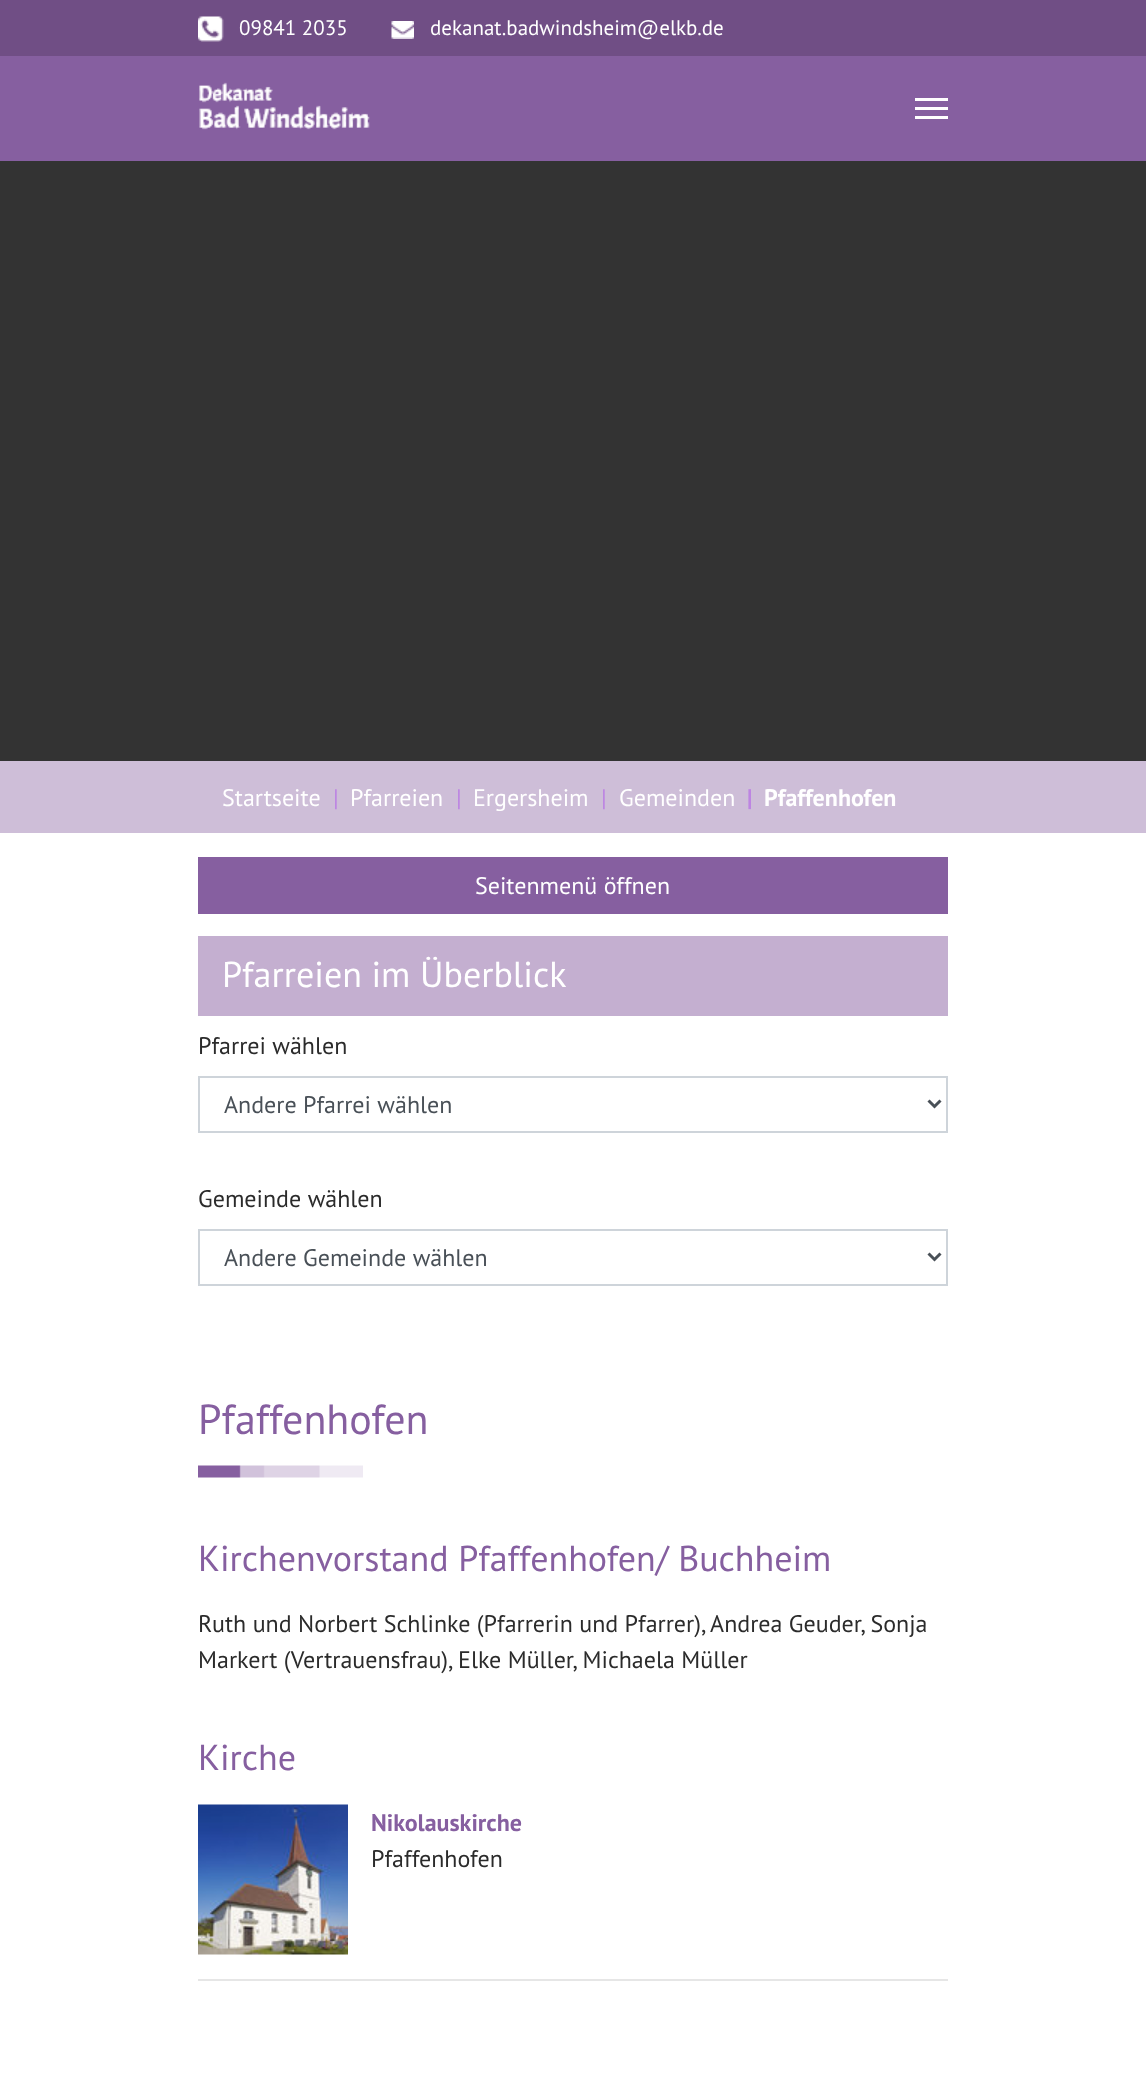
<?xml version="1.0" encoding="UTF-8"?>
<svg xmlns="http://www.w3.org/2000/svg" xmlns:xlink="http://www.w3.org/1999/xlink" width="1146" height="2084">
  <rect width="100%" height="100%" fill="#ffffff" />
  <rect width="1146" height="56" fill="#704e85" />
  <image x="198" y="16" width="26" height="26" xlink:href="image1.png" />
  <image x="391" y="21" width="23" height="18" xlink:href="image2.png" />
  <rect y="56" width="1146" height="105" fill="#865fa0" />
  <image x="199" y="82" width="171" height="48" xlink:href="image3.png" />
  <rect x="915" y="107" width="33" height="3" fill="#ffffff" />
  <rect x="915" y="98" width="33" height="3" fill="#ffffff" />
  <rect x="915" y="116" width="33" height="3" fill="#ffffff" />
  <rect y="161" width="1146" height="600" fill="#333333" />
  <rect y="761" width="1146" height="72" fill="#cebed8" />
  <rect x="198" y="857" width="750" height="57" fill="#865fa0" />
  <rect x="198" y="936" width="750" height="80" fill="#c4afd0" />
  <rect x="199" y="1077" width="748" height="55" fill="none" stroke="#ced4da" stroke-width="2" />
  <path d="M 928.5 1100.5 l 6 6 l 6 -6" fill="none" stroke="#495057" stroke-width="3" />
  <rect x="199" y="1230" width="748" height="55" fill="none" stroke="#ced4da" stroke-width="2" />
  <path d="M 928.5 1253.5 l 6 6 l 6 -6" fill="none" stroke="#495057" stroke-width="3" />
  <image x="198" y="1465" width="165" height="13" xlink:href="image4.png" />
  <image x="198" y="1804" width="150" height="151" xlink:href="image5.png" />
  <rect x="198" y="1979" width="750" height="2" fill="#e6e6e6" />
  <text x="239" y="35" style="font-family: PT Sans; font-size: 21px; fill: #ffffff">09841 2035</text>
  <text x="430" y="35" style="font-family: PT Sans; font-size: 21px; fill: #ffffff">dekanat.badwindsheim@elkb.de</text>
  <text x="222" y="806" style="font-family: PT Sans; font-size: 24px; fill: #ffffff">Startseite</text>
  <text x="333" y="806" style="font-family: PT Sans; font-size: 24px; fill: #bd85e2">|</text>
  <text x="350" y="806" style="font-family: PT Sans; font-size: 24px; fill: #ffffff">Pfarreien</text>
  <text x="456" y="806" style="font-family: PT Sans; font-size: 24px; fill: #bd85e2">|</text>
  <text x="473" y="806" style="font-family: PT Sans; font-size: 24px; fill: #ffffff">Ergersheim</text>
  <text x="601" y="806" style="font-family: PT Sans; font-size: 24px; fill: #bd85e2">|</text>
  <text x="619" y="806" style="font-family: PT Sans; font-size: 24px; fill: #ffffff">Gemeinden</text>
  <text x="747" y="806" style="font-family: PT Sans; font-size: 24px; font-weight: bold; fill: #bd85e2">|</text>
  <text x="764" y="806" style="font-family: PT Sans; font-size: 24px; font-weight: bold; fill: #ffffff">Pfaffenhofen</text>
  <text x="475" y="894" style="font-family: PT Sans; font-size: 24px; fill: #ffffff">Seitenmenü öffnen</text>
  <text x="222" y="987" style="font-family: PT Sans; font-size: 36px; fill: #ffffff">Pfarreien im Überblick</text>
  <text x="198" y="1054" style="font-family: PT Sans; font-size: 24px; fill: #2b2b2b">Pfarrei wählen</text>
  <text x="224" y="1113" style="font-family: PT Sans; font-size: 24px; fill: #495057">Andere Pfarrei wählen</text>
  <text x="198" y="1207" style="font-family: PT Sans; font-size: 24px; fill: #2b2b2b">Gemeinde wählen</text>
  <text x="224" y="1266" style="font-family: PT Sans; font-size: 24px; fill: #495057">Andere Gemeinde wählen</text>
  <text x="198" y="1434" style="font-family: PT Sans; font-size: 42px; fill: #865fa0">Pfaffenhofen</text>
  <text x="198" y="1571" style="font-family: PT Sans; font-size: 36px; fill: #865fa0">Kirchenvorstand Pfaffenhofen/ Buchheim</text>
  <text x="198" y="1632" style="font-family: PT Sans; font-size: 24px; fill: #2b2b2b">Ruth und Norbert Schlinke (Pfarrerin und Pfarrer), Andrea Geuder, Sonja</text>
  <text x="198" y="1668" style="font-family: PT Sans; font-size: 24px; fill: #2b2b2b">Markert (Vertrauensfrau), Elke Müller, Michaela Müller</text>
  <text x="198" y="1770" style="font-family: PT Sans; font-size: 36px; fill: #865fa0">Kirche</text>
  <text x="371" y="1831" style="font-family: PT Sans; font-size: 24px; font-weight: bold; fill: #865fa0">Nikolauskirche</text>
  <text x="371" y="1867" style="font-family: PT Sans; font-size: 24px; fill: #2b2b2b">Pfaffenhofen</text>
</svg>
